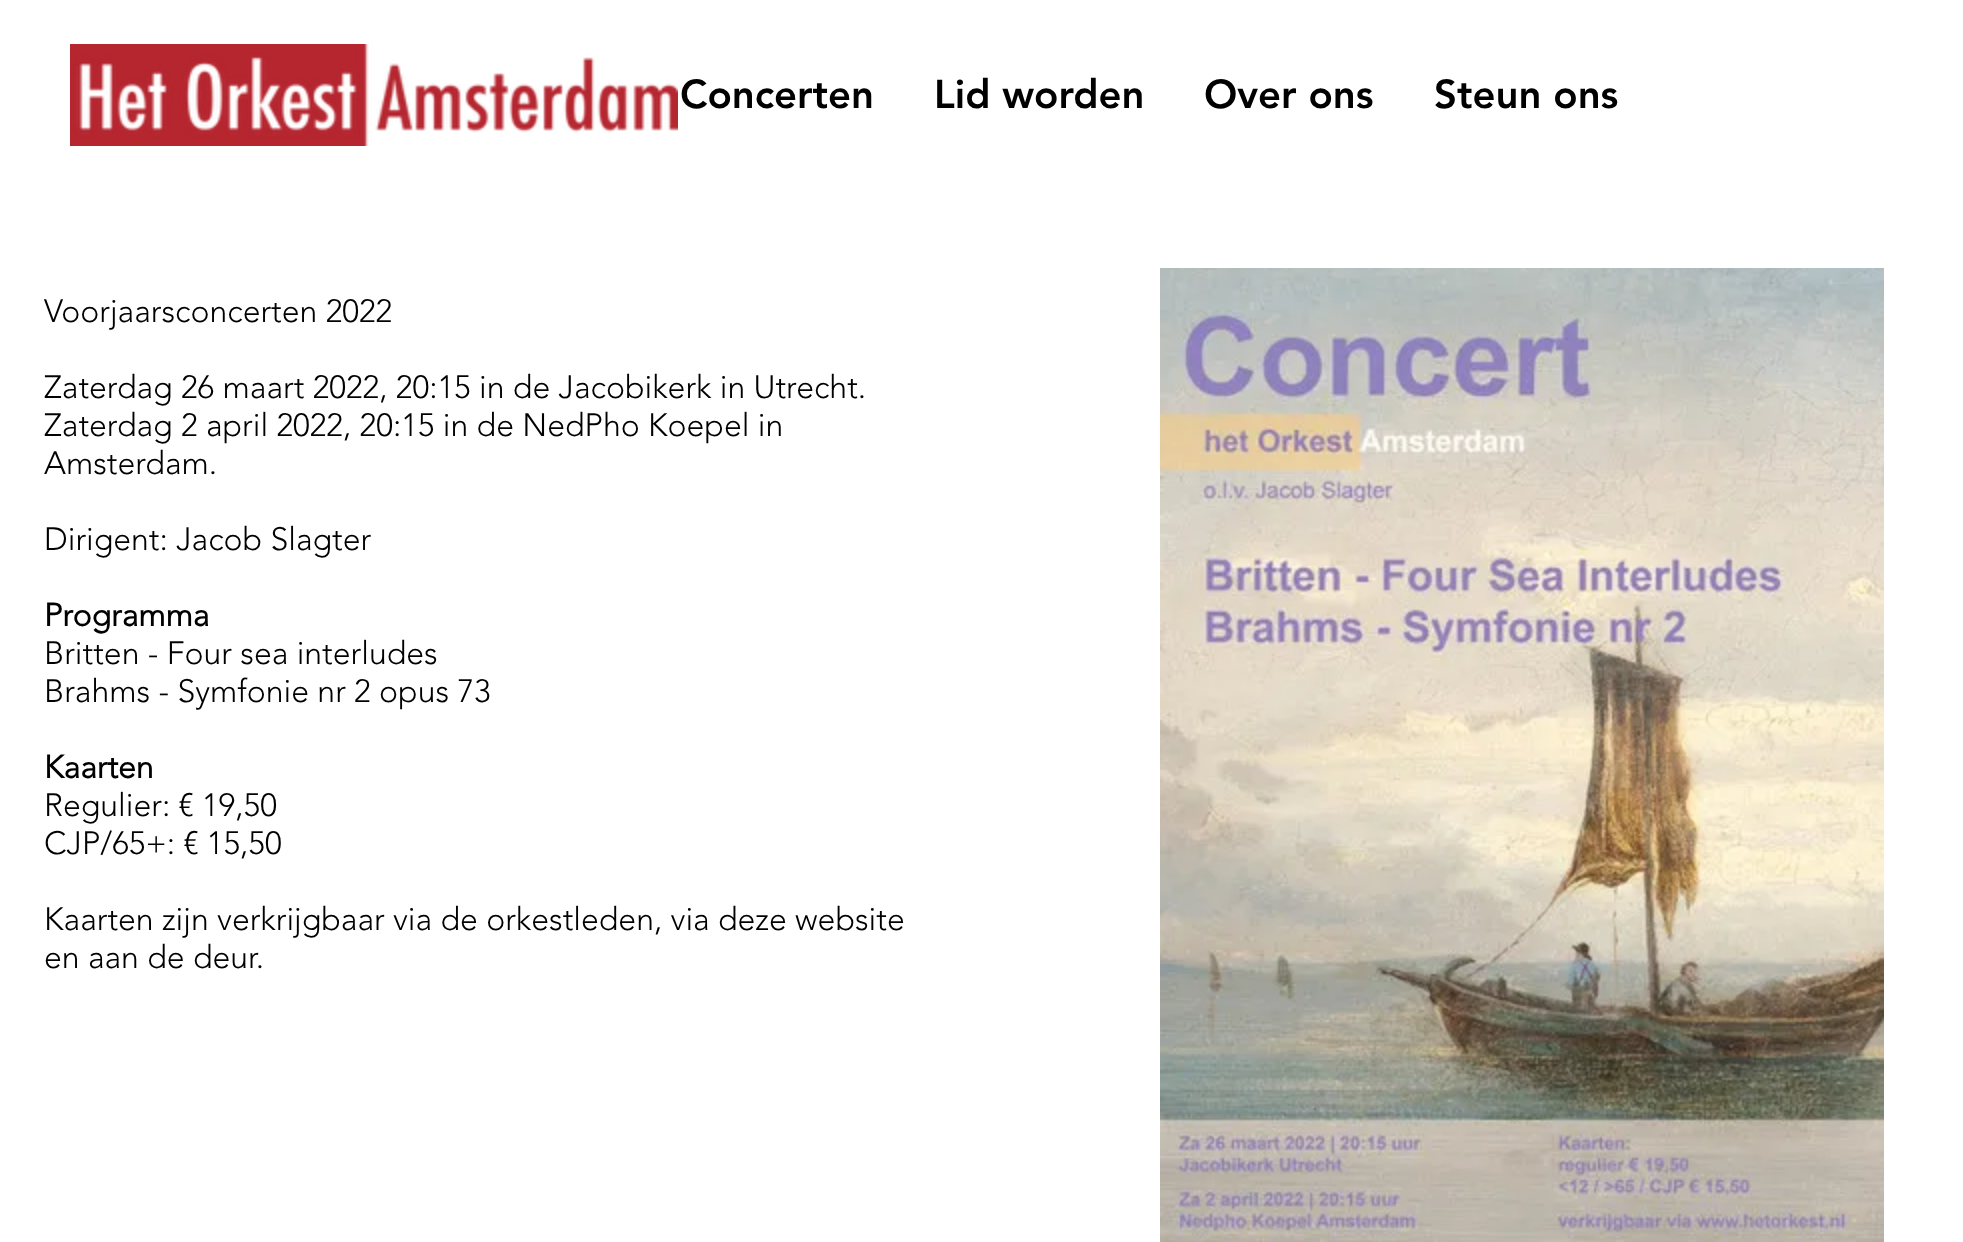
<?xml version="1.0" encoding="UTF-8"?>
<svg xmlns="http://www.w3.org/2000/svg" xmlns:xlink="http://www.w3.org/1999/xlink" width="1963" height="1242">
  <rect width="100%" height="100%" fill="#ffffff" />
  <image x="70" y="44" width="608" height="102" xlink:href="image1.png" />
  <image x="1160" y="268" width="724" height="974" xlink:href="image2.png" />
  <text x="680" y="108" style="font-family: 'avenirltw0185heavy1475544'; font-size: 40px; font-weight: 900; fill: #000000">Concerten</text>
  <text x="934" y="108" style="font-family: 'avenirltw0185heavy1475544'; font-size: 40px; font-weight: 900; fill: #000000">Lid worden</text>
  <text x="1204" y="108" style="font-family: 'avenirltw0185heavy1475544'; font-size: 40px; font-weight: 900; fill: #000000">Over ons</text>
  <text x="1434" y="108" style="font-family: 'avenirltw0185heavy1475544'; font-size: 40px; font-weight: 900; fill: #000000">Steun ons</text>
  <text x="44" y="322" style="font-family: 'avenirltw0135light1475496'; font-size: 32px; font-weight: 300; fill: #000000">Voorjaarsconcerten 2022</text>
  <text x="44" y="398" style="font-family: 'avenirltw0135light1475496'; font-size: 32px; font-weight: 300; fill: #000000">Zaterdag 26 maart 2022, 20:15 in de Jacobikerk in Utrecht.</text>
  <text x="44" y="436" style="font-family: 'avenirltw0135light1475496'; font-size: 32px; font-weight: 300; fill: #000000">Zaterdag 2 april 2022, 20:15 in de NedPho Koepel in</text>
  <text x="44" y="474" style="font-family: 'avenirltw0135light1475496'; font-size: 32px; font-weight: 300; fill: #000000">Amsterdam.</text>
  <text x="44" y="550" style="font-family: 'avenirltw0135light1475496'; font-size: 32px; font-weight: 300; fill: #000000">Dirigent: Jacob Slagter</text>
  <text x="44" y="626" style="font-family: 'avenirltw0135light1475496'; font-size: 32px; font-weight: bold; fill: #000000">Programma</text>
  <text x="44" y="664" style="font-family: 'avenirltw0135light1475496'; font-size: 32px; font-weight: 300; fill: #000000">Britten - Four sea interludes</text>
  <text x="44" y="702" style="font-family: 'avenirltw0135light1475496'; font-size: 32px; font-weight: 300; fill: #000000">Brahms - Symfonie nr 2 opus 73</text>
  <text x="44" y="778" style="font-family: 'avenirltw0135light1475496'; font-size: 32px; font-weight: bold; fill: #000000">Kaarten</text>
  <text x="44" y="816" style="font-family: 'avenirltw0135light1475496'; font-size: 32px; font-weight: 300; fill: #000000">Regulier: € 19,50</text>
  <text x="44" y="854" style="font-family: 'avenirltw0135light1475496'; font-size: 32px; font-weight: 300; fill: #000000">CJP/65+: € 15,50</text>
  <text x="44" y="930" style="font-family: 'avenirltw0135light1475496'; font-size: 32px; font-weight: 300; fill: #000000">Kaarten zijn verkrijgbaar via de orkestleden, via deze website</text>
  <text x="44" y="968" style="font-family: 'avenirltw0135light1475496'; font-size: 32px; font-weight: 300; fill: #000000">en aan de deur.</text>
</svg>
